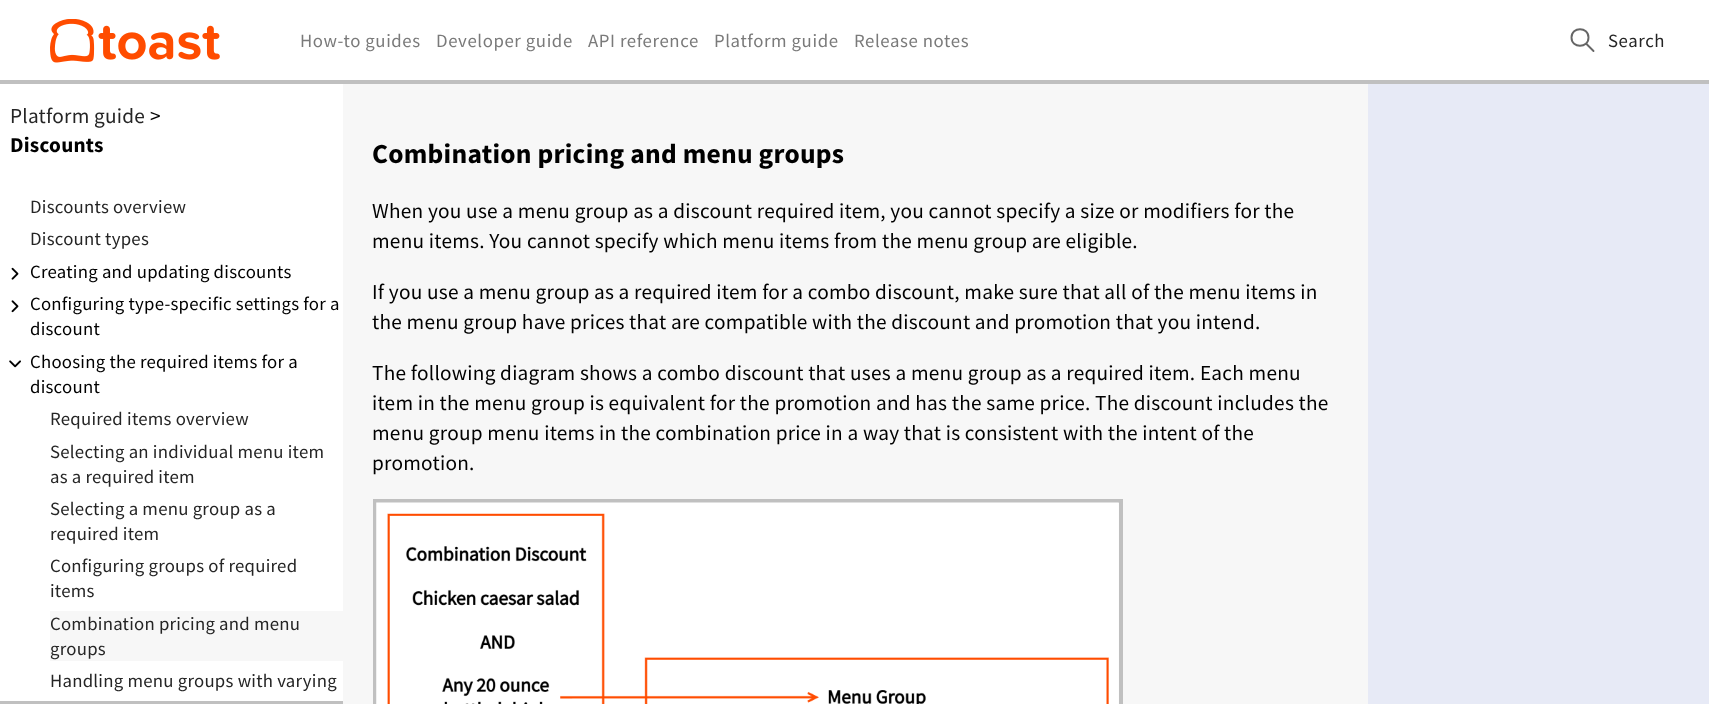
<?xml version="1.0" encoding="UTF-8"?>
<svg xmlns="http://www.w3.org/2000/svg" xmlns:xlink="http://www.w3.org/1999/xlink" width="1709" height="704">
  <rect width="100%" height="100%" fill="#ffffff" />
  <rect y="80" width="1709" height="4" fill="#c0c0c0" />
  <image x="50" y="19" width="170" height="44" xlink:href="image1.png" />
  <path d="M 1586.5 44 l 7 7 m -5 -13.5 c 0 11 -17 11 -17 0 c 0 -11 17 -11 17 0 z" fill="none" stroke="#666666" stroke-width="1.9" stroke-linecap="round" stroke-linejoin="round" />
  <rect y="701" width="343" height="3" fill="#c0c0c0" />
  <image x="11" y="267" width="8" height="13" xlink:href="image2.png" />
  <image x="11" y="300" width="8" height="13" xlink:href="image3.png" />
  <image x="9" y="360" width="12" height="8" xlink:href="image4.png" />
  <rect x="50" y="611" width="293" height="50" fill="#f7f7f7" />
  <rect x="343" y="84" width="1025" height="620" fill="#f7f7f7" />
  <rect x="375" y="501" width="746" height="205" fill="none" stroke="#c0c0c0" stroke-width="4" />
  <image x="376" y="502" width="743" height="202" xlink:href="image5.png" />
  <rect x="1368" y="84" width="341" height="620" fill="#e7eaf6" />
  <text x="300" y="47" style="font-family: Source Sans Pro; font-size: 18.75px; letter-spacing: 0.6px; fill: #7a7a7a">How-to guides</text>
  <text x="436" y="47" style="font-family: Source Sans Pro; font-size: 18.75px; letter-spacing: 0.6px; fill: #7a7a7a">Developer guide</text>
  <text x="588" y="47" style="font-family: Source Sans Pro; font-size: 18.75px; letter-spacing: 0.6px; fill: #7a7a7a">API reference</text>
  <text x="714" y="47" style="font-family: Source Sans Pro; font-size: 18.75px; letter-spacing: 0.6px; fill: #7a7a7a">Platform guide</text>
  <text x="854" y="47" style="font-family: Source Sans Pro; font-size: 18.75px; letter-spacing: 0.6px; fill: #7a7a7a">Release notes</text>
  <text x="1608" y="47" style="font-family: Source Sans Pro; font-size: 18.75px; letter-spacing: 0.6px; fill: #252525">Search</text>
  <text x="10" y="123" style="font-family: Source Sans Pro; font-size: 21.25px; letter-spacing: 0.25px; fill: #252525">Platform guide</text>
  <text x="150" y="123" style="font-family: Source Sans Pro; font-size: 21.25px; letter-spacing: 0.25px; fill: #000000">&gt;</text>
  <text x="10" y="152" style="font-family: Source Sans Pro; font-size: 21.25px; font-weight: bold; letter-spacing: 0.25px; fill: #000000">Discounts</text>
  <text x="30" y="213" style="font-family: Source Sans Pro; font-size: 18.75px; letter-spacing: 0.25px; fill: #252525">Discounts overview</text>
  <text x="30" y="245" style="font-family: Source Sans Pro; font-size: 18.75px; letter-spacing: 0.25px; fill: #252525">Discount types</text>
  <text x="30" y="278" style="font-family: Source Sans Pro; font-size: 18.75px; letter-spacing: 0.25px; fill: #000000">Creating and updating discounts</text>
  <text x="30" y="310" style="font-family: Source Sans Pro; font-size: 18.75px; letter-spacing: 0.25px; fill: #000000">Configuring type-specific settings for a</text>
  <text x="30" y="335" style="font-family: Source Sans Pro; font-size: 18.75px; letter-spacing: 0.25px; fill: #000000">discount</text>
  <text x="30" y="368" style="font-family: Source Sans Pro; font-size: 18.75px; letter-spacing: 0.25px; fill: #000000">Choosing the required items for a</text>
  <text x="30" y="393" style="font-family: Source Sans Pro; font-size: 18.75px; letter-spacing: 0.25px; fill: #000000">discount</text>
  <text x="50" y="425" style="font-family: Source Sans Pro; font-size: 18.75px; letter-spacing: 0.25px; fill: #252525">Required items overview</text>
  <text x="50" y="458" style="font-family: Source Sans Pro; font-size: 18.75px; letter-spacing: 0.25px; fill: #252525">Selecting an individual menu item</text>
  <text x="50" y="483" style="font-family: Source Sans Pro; font-size: 18.75px; letter-spacing: 0.25px; fill: #252525">as a required item</text>
  <text x="50" y="515" style="font-family: Source Sans Pro; font-size: 18.75px; letter-spacing: 0.25px; fill: #252525">Selecting a menu group as a</text>
  <text x="50" y="540" style="font-family: Source Sans Pro; font-size: 18.75px; letter-spacing: 0.25px; fill: #252525">required item</text>
  <text x="50" y="572" style="font-family: Source Sans Pro; font-size: 18.75px; letter-spacing: 0.25px; fill: #252525">Configuring groups of required</text>
  <text x="50" y="597" style="font-family: Source Sans Pro; font-size: 18.75px; letter-spacing: 0.25px; fill: #252525">items</text>
  <text x="50" y="630" style="font-family: Source Sans Pro; font-size: 18.75px; letter-spacing: 0.25px; fill: #252525">Combination pricing and menu</text>
  <text x="50" y="655" style="font-family: Source Sans Pro; font-size: 18.75px; letter-spacing: 0.25px; fill: #252525">groups</text>
  <text x="50" y="687" style="font-family: Source Sans Pro; font-size: 18.75px; letter-spacing: 0.25px; fill: #252525">Handling menu groups with varying</text>
  <text x="372" y="163" style="font-family: Source Sans Pro; font-size: 27.5px; font-weight: bold; letter-spacing: 0.25px; fill: #000000">Combination pricing and menu groups</text>
  <text x="372" y="218" style="font-family: Source Sans Pro; font-size: 21.25px; letter-spacing: 0.25px; fill: #000000">When you use a menu group as a discount required item, you cannot specify a size or modifiers for the</text>
  <text x="372" y="248" style="font-family: Source Sans Pro; font-size: 21.25px; letter-spacing: 0.25px; fill: #000000">menu items. You cannot specify which menu items from the menu group are eligible.</text>
  <text x="372" y="299" style="font-family: Source Sans Pro; font-size: 21.25px; letter-spacing: 0.25px; fill: #000000">If you use a menu group as a required item for a combo discount, make sure that all of the menu items in</text>
  <text x="372" y="329" style="font-family: Source Sans Pro; font-size: 21.25px; letter-spacing: 0.25px; fill: #000000">the menu group have prices that are compatible with the discount and promotion that you intend.</text>
  <text x="372" y="380" style="font-family: Source Sans Pro; font-size: 21.25px; letter-spacing: 0.25px; fill: #000000">The following diagram shows a combo discount that uses a menu group as a required item. Each menu</text>
  <text x="372" y="410" style="font-family: Source Sans Pro; font-size: 21.25px; letter-spacing: 0.25px; fill: #000000">item in the menu group is equivalent for the promotion and has the same price. The discount includes the</text>
  <text x="372" y="440" style="font-family: Source Sans Pro; font-size: 21.25px; letter-spacing: 0.25px; fill: #000000">menu group menu items in the combination price in a way that is consistent with the intent of the</text>
  <text x="372" y="470" style="font-family: Source Sans Pro; font-size: 21.25px; letter-spacing: 0.25px; fill: #000000">promotion.</text>
</svg>
